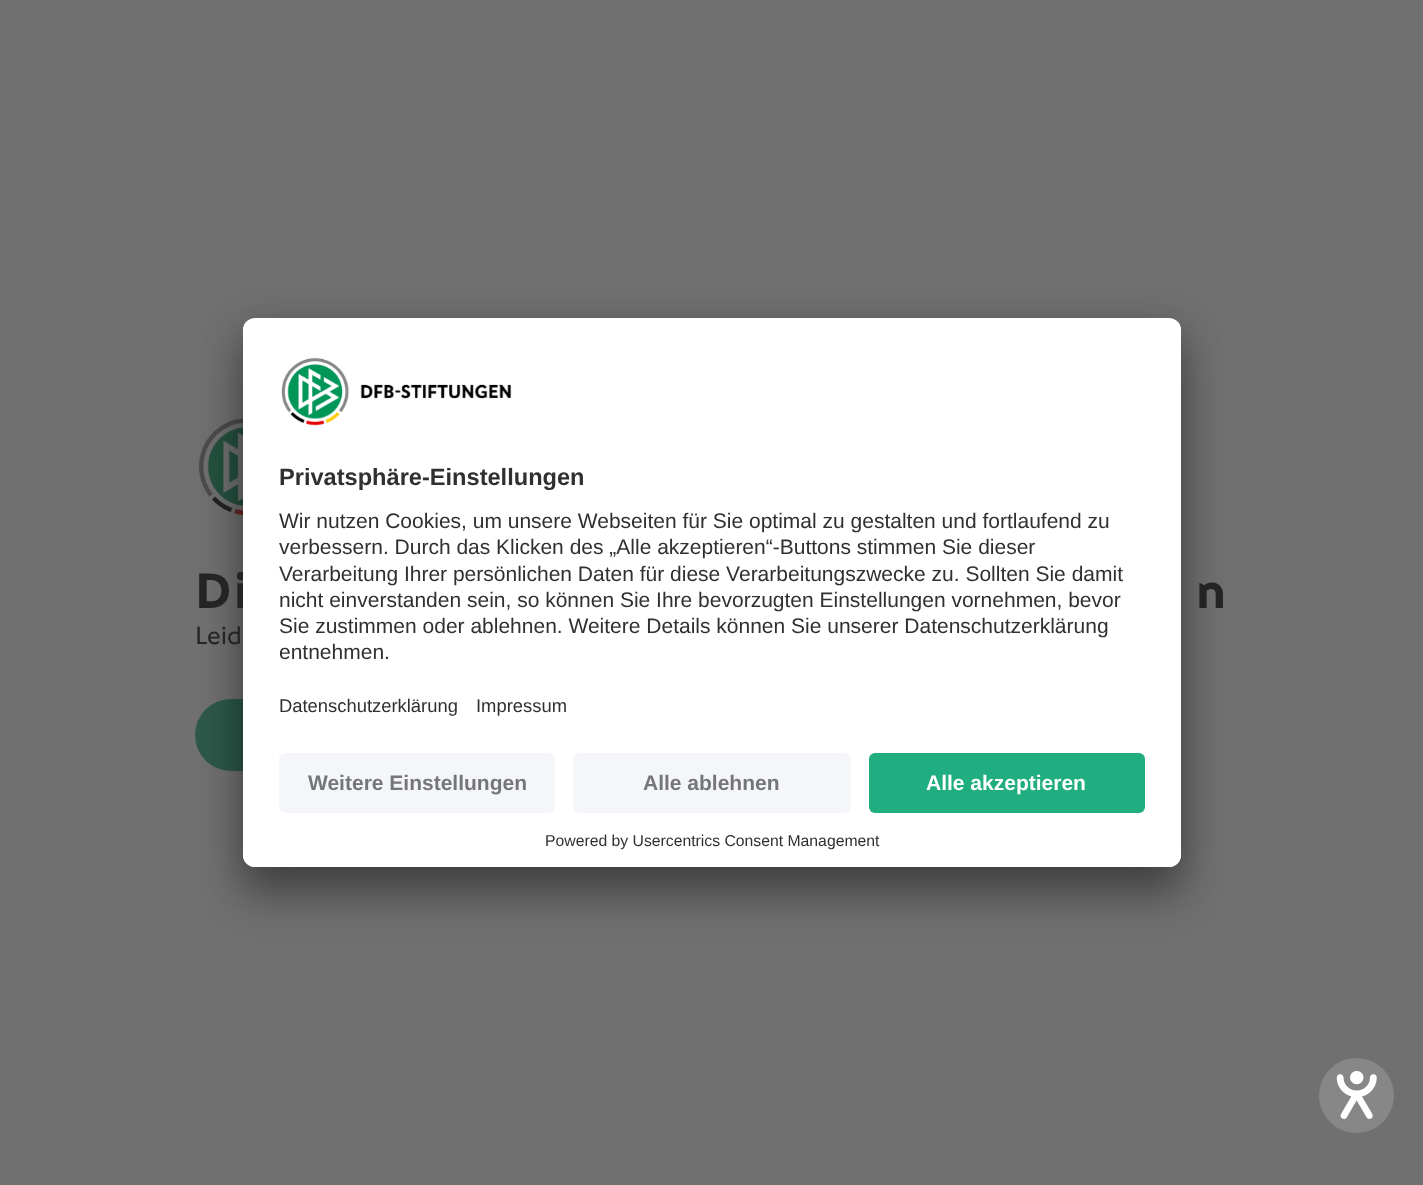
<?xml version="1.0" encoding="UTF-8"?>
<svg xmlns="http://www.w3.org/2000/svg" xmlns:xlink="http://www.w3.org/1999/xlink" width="1423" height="1185">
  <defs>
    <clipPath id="clip1"><rect x="243" y="318" width="938" height="549" rx="12" /></clipPath>
    <clipPath id="clip2"><path d="M 255 318 h 914 c 6.5 0 12 5.5 12 12 v 411 h -938 v -411 c 0 -6.5 5.5 -12 12 -12 z" /></clipPath>
  </defs>
  <rect width="100%" height="100%" fill="#707070" />
  <image x="196" y="415" width="47" height="103" xlink:href="image2.png" />
  <rect x="195" y="699" width="254" height="72" rx="36" fill="#2d584a" />
  <rect x="243" y="348" width="938" height="549" rx="12" fill="#000000" fill-opacity="0.3" filter="blur(21px)" />
  <rect x="243" y="326" width="938" height="549" rx="12" fill="#000000" fill-opacity="0.22" filter="blur(19.5px)" />
  <circle cx="1356.5" cy="1095.5" r="37.5" fill="#878787" />
  <image x="1336" y="1071" width="41" height="48" xlink:href="image3.png" />
  <text x="195" y="608" style="font-family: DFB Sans; font-size: 50px; font-weight: bold; letter-spacing: 3px; fill: #242424">Di</text>
  <rect x="243" y="318" width="938" height="549" rx="12" fill="#ffffff" />
  <g clip-path="url(#clip1)">
    <g clip-path="url(#clip2)">
      <rect x="243" y="320" width="938" height="421" fill="#ffffff" />
    </g>
  </g>
  <text x="476" y="712" style="font-family: Liberation Sans; font-size: 18.4px; fill: #303030">Impressum</text>
  <text x="279" y="712" style="font-family: Liberation Sans; font-size: 18.4px; fill: #303030">Datenschutzerklärung</text>
  <image x="281" y="357" width="231" height="69" xlink:href="image1.png" />
  <text x="279" y="659" style="font-family: Liberation Sans; font-size: 21px; fill: #303030">entnehmen.</text>
  <text x="279" y="633" style="font-family: Liberation Sans; font-size: 21px; fill: #303030">Sie zustimmen oder ablehnen. Weitere Details können Sie unserer Datenschutzerklärung</text>
  <text x="279" y="607" style="font-family: Liberation Sans; font-size: 21px; fill: #303030">nicht einverstanden sein, so können Sie Ihre bevorzugten Einstellungen vornehmen, bevor</text>
  <text x="279" y="581" style="font-family: Liberation Sans; font-size: 21px; fill: #303030">Verarbeitung Ihrer persönlichen Daten für diese Verarbeitungszwecke zu. Sollten Sie damit</text>
  <text x="279" y="554" style="font-family: Liberation Sans; font-size: 21px; fill: #303030">verbessern. Durch das Klicken des „Alle akzeptieren“-Buttons stimmen Sie dieser</text>
  <text x="279" y="528" style="font-family: Liberation Sans; font-size: 21px; fill: #303030">Wir nutzen Cookies, um unsere Webseiten für Sie optimal zu gestalten und fortlaufend zu</text>
  <text x="279" y="485" style="font-family: Liberation Sans; font-size: 23.6px; font-weight: bold; fill: #303030">Privatsphäre-Einstellungen</text>
  <path d="M 243 741 h 938 v 114 c 0 6.5 -5.5 12 -12 12 h -914 c -6.5 0 -12 -5.5 -12 -12 z" fill="#ffffff" />
  <text x="545" y="846" style="font-family: Liberation Sans; font-size: 15.75px; fill: #303030">Powered by Usercentrics Consent Management</text>
  <rect x="869" y="753" width="276" height="60" rx="6" fill="#20ae80" />
  <text x="926" y="790" style="font-family: Liberation Sans; font-size: 21px; font-weight: bold; fill: #ffffff">Alle akzeptieren</text>
  <rect x="573" y="753" width="278" height="60" rx="6" fill="#f5f6fa" />
  <text x="643" y="790" style="font-family: Liberation Sans; font-size: 21px; font-weight: bold; fill: #757678">Alle ablehnen</text>
  <rect x="279" y="753" width="276" height="60" rx="6" fill="#f5f6fa" />
  <text x="308" y="790" style="font-family: Liberation Sans; font-size: 21px; font-weight: bold; fill: #757678">Weitere Einstellungen</text>
  <text x="1196" y="608" style="font-family: DFB Sans; font-size: 50px; font-weight: bold; letter-spacing: 3px; fill: #242424">n</text>
  <text x="195" y="644" style="font-family: DFB Sans; font-size: 25px; fill: #242424">Leid</text>
</svg>
